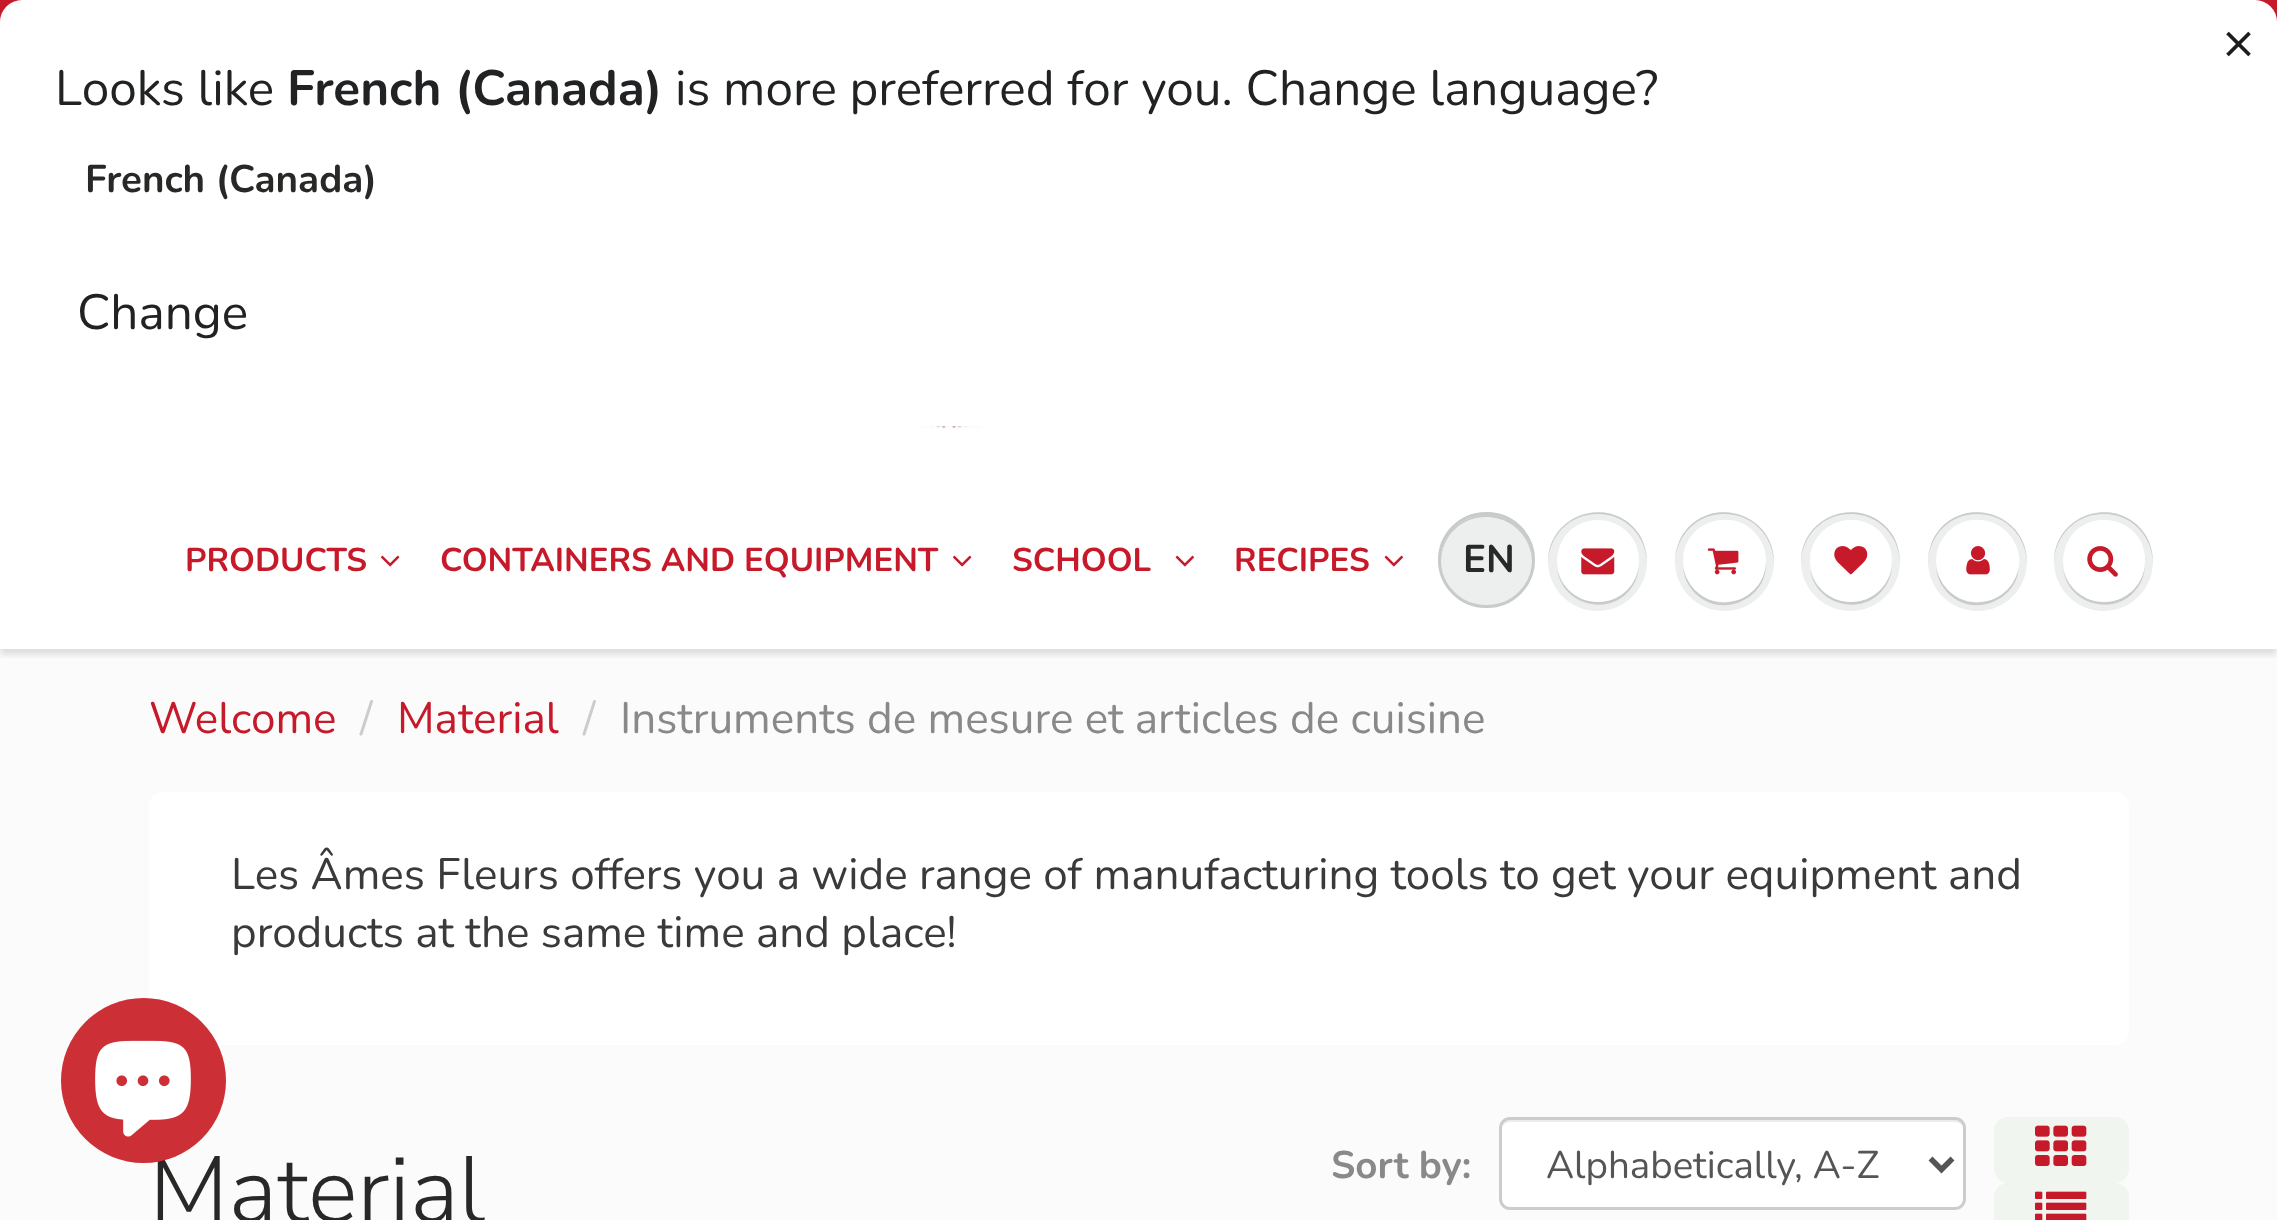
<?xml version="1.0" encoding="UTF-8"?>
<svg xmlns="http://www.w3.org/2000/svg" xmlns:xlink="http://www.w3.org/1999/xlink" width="2277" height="1220">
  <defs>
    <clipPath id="clip1"><rect x="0" y="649" width="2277" height="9" /></clipPath>
  </defs>
  <rect width="100%" height="100%" fill="#ffffff" />
  <rect width="2277" height="22" fill="#c61a2a" />
  <rect width="2277" height="426" rx="22" fill="#ffffff" />
  <image x="2226" y="31" width="25" height="26" xlink:href="image1.png" />
  <image x="864" y="426" width="547" height="3" xlink:href="image3.png" />
  <rect y="649" width="2277" height="571" fill="#fbfbfb" />
  <g clip-path="url(#clip1)">
    <rect y="476" width="2277" height="179" fill="#0b191c" fill-opacity="0.12" filter="blur(3px)" />
  </g>
  <image x="381" y="555" width="19" height="12" xlink:href="image4.png" />
  <image x="953" y="555" width="19" height="12" xlink:href="image4.png" />
  <image x="1175" y="555" width="19" height="12" xlink:href="image5.png" />
  <image x="1384" y="555" width="19" height="12" xlink:href="image5.png" />
  <rect x="1438" y="512" width="97" height="96" rx="48" fill="#edefef" />
  <path d="M 1486 517 c 25 0 45 19 46 44 c 0 -10 -2 -19 -8 -27 c -25 -37 -84 -18 -83 27 c 1 -25 20 -44 45 -44 z" fill="#c9cbcb" />
  <rect x="1439.5" y="513.5" width="94" height="93" rx="46.5" fill="none" stroke="#c9cbcb" stroke-width="3" />
  <circle cx="1597.5" cy="561.5" r="49.5" fill="#edefef" />
  <path d="M 1557 569 c 5 37 54 49 75 18 c 5 -7 7 -16 7 -24 c -1 22 -19 39 -41 39 c -20 0 -37 -14 -41 -33 z" fill="#c9cbcb" />
  <path d="M 1598 514 c 27 0 48 21 49 49 c 0 -11 -3 -21 -8 -29 c -28 -41 -92 -20 -91 29 c 1 -28 22 -49 50 -49 z" fill="#c9cbcb" />
  <circle cx="1598" cy="561" r="41" fill="#ffffff" />
  <path d="M 1598 522 c 22 0 40 18 41 40 c 2 -47 -67 -58 -80 -13 c 6 -16 21 -27 39 -27 z" fill="#ffffff" />
  <image x="1581" y="548" width="34" height="27" xlink:href="image6.png" />
  <circle cx="1724.5" cy="561.5" r="49.5" fill="#edefef" />
  <path d="M 1724 514 c 28 0 49 21 50 49 c 1 -49 -63 -70 -91 -29 c -5 8 -8 18 -8 29 c 1 -28 22 -49 49 -49 z" fill="#c9cbcb" />
  <path d="M 1683 563 c 0 8 2 17 7 24 c 25 37 84 13 75 -31 c 6 42 -50 64 -74 29 c -5 -7 -8 -15 -8 -22 z" fill="#c9cbcb" />
  <rect x="1683" y="520" width="83" height="82" rx="41" fill="#ffffff" />
  <path d="M 1724 522 c 22 0 41 18 42 41 c 0 -9 -2 -18 -7 -25 c -23 -34 -77 -17 -76 24 c 1 -22 19 -40 41 -40 z" fill="#ffffff" />
  <image x="1707" y="548" width="32" height="27" xlink:href="image7.png" />
  <circle cx="1850.5" cy="561.5" r="49.5" fill="#edefef" />
  <path d="M 1810 569 c 5 37 54 49 75 18 c 5 -7 7 -16 7 -24 c -1 22 -19 39 -41 39 c -20 0 -37 -14 -41 -33 z" fill="#c9cbcb" />
  <path d="M 1851 514 c 27 0 48 21 49 49 c 0 -11 -3 -21 -8 -29 c -28 -41 -92 -20 -91 29 c 1 -28 22 -49 50 -49 z" fill="#c9cbcb" />
  <circle cx="1851" cy="561" r="41" fill="#ffffff" />
  <path d="M 1851 522 c 22 0 40 18 41 40 c 0 -8 -2 -17 -7 -24 c -23 -34 -76 -16 -75 24 c 1 -22 19 -40 41 -40 z" fill="#ffffff" />
  <image x="1834" y="546" width="34" height="29" xlink:href="image8.png" />
  <circle cx="1977.5" cy="561.5" r="49.5" fill="#edefef" />
  <path d="M 1977 514 c 28 0 49 21 50 49 c 1 -49 -63 -70 -91 -29 c -5 8 -8 18 -8 29 c 1 -28 22 -49 49 -49 z" fill="#c9cbcb" />
  <path d="M 1936 563 c 0 8 2 17 7 24 c 25 37 84 13 75 -31 c 6 42 -50 64 -74 29 c -5 -7 -8 -15 -8 -22 z" fill="#c9cbcb" />
  <rect x="1936" y="520" width="83" height="82" rx="41" fill="#ffffff" />
  <path d="M 1977 522 c 27 0 46 27 40 53 c 14 -41 -38 -74 -69 -43 c -8 8 -12 19 -12 30 c 1 -22 19 -40 41 -40 z" fill="#ffffff" />
  <image x="1966" y="546" width="24" height="29" xlink:href="image9.png" />
  <circle cx="2103.5" cy="561.5" r="49.5" fill="#edefef" />
  <path d="M 2063 569 c 5 37 54 49 75 18 c 5 -7 7 -16 7 -24 c -1 22 -19 39 -41 39 c -20 0 -37 -14 -41 -33 z" fill="#c9cbcb" />
  <path d="M 2104 514 c 27 0 48 21 49 49 c 0 -11 -3 -21 -8 -29 c -28 -41 -92 -20 -91 29 c 1 -28 22 -49 50 -49 z" fill="#c9cbcb" />
  <circle cx="2104" cy="561" r="41" fill="#ffffff" />
  <path d="M 2104 522 c 22 0 40 18 41 40 c 2 -48 -67 -58 -80 -13 c 6 -16 21 -27 39 -27 z" fill="#ffffff" />
  <image x="2087" y="546" width="31" height="31" xlink:href="image10.png" />
  <rect x="156" y="799" width="1966" height="239" rx="7" fill="none" stroke="#ffffff" stroke-width="14" />
  <rect x="163" y="806" width="1952" height="225" fill="#ffffff" />
  <rect x="1499" y="1117" width="467" height="93" rx="11" fill="#ffffff" />
  <path d="M 1510 1122 h 445 c 5 0 9 4 9 8 c 0 -5 -2 -11 -8 -11 h -446 c -6 0 -8 6 -8 11 c 0 -4 3 -8 8 -8 z" fill="#ececec" />
  <rect x="1500.5" y="1118.5" width="464" height="90" rx="9.5" fill="none" stroke="#cccccc" stroke-width="3" />
  <path d="M 1930.5 1158.5 l 11 11 l 11 -11" fill="none" stroke="#555555" stroke-width="5.5" />
  <rect x="1994" y="1117" width="135" height="66" rx="14" fill="#f1f5f0" />
  <image x="2035" y="1125" width="52" height="41" xlink:href="image11.png" />
  <rect x="1994" y="1183" width="135" height="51" rx="14" fill="#f1f5f0" />
  <image x="2035" y="1191" width="52" height="29" xlink:href="image12.png" />
  <text x="55" y="105" style="font-family: Nunito; font-size: 49.5px; fill: #202223">Looks like</text>
  <text x="287" y="105" style="font-family: Nunito; font-size: 49.5px; font-weight: bold; fill: #202223">French (Canada)</text>
  <text x="675" y="105" style="font-family: Nunito; font-size: 49.5px; fill: #202223">is more preferred for you. Change language?</text>
  <text x="85" y="192" style="font-family: Nunito; font-size: 38.5px; font-weight: bold; fill: #282827">French (Canada)</text>
  <text x="77" y="329" style="font-family: Nunito; font-size: 49.5px; fill: #202223">Change</text>
  <text x="185" y="571" style="font-family: Nunito; font-size: 33px; font-weight: bold; fill: #c61a2a">PRODUCTS</text>
  <text x="440" y="571" style="font-family: Nunito; font-size: 33px; font-weight: bold; fill: #c61a2a">CONTAINERS AND EQUIPMENT</text>
  <text x="1012" y="571" style="font-family: Nunito; font-size: 33px; font-weight: bold; fill: #c61a2a">SCHOOL</text>
  <text x="1234" y="571" style="font-family: Nunito; font-size: 33px; font-weight: bold; fill: #c61a2a">RECIPES</text>
  <text x="1463" y="572" style="font-family: Nunito; font-size: 38.5px; font-weight: bold; fill: #282827">EN</text>
  <text x="149" y="733" style="font-family: Nunito; font-size: 44px; fill: #c61a2a">Welcome</text>
  <text x="360" y="733" style="font-family: Nunito; font-size: 44px; fill: #cccccc">/</text>
  <text x="397" y="733" style="font-family: Nunito; font-size: 44px; fill: #c61a2a">Material</text>
  <text x="583" y="733" style="font-family: Nunito; font-size: 44px; fill: #cccccc">/</text>
  <text x="620" y="733" style="font-family: Nunito; font-size: 44px; fill: #898989">Instruments de mesure et articles de cuisine</text>
  <text x="231" y="889" style="font-family: Nunito; font-size: 44px; fill: #3a3a3a">Les Âmes Fleurs offers you a wide range of manufacturing tools to get your equipment and</text>
  <text x="231" y="947" style="font-family: Nunito; font-size: 44px; fill: #3a3a3a">products at the same time and place!</text>
  <text x="149" y="1222" style="font-family: Nunito Sans; font-size: 93.5px; font-weight: 300; fill: #282827">Material</text>
  <circle cx="143.5" cy="1080.5" r="82.5" fill="#cc2f36" />
  <image x="95" y="1040" width="96" height="97" xlink:href="image2.png" />
  <text x="1331" y="1178" style="font-family: Nunito; font-size: 38.5px; font-weight: bold; fill: #898989">Sort by:</text>
  <text x="1546" y="1178" style="font-family: Nunito; font-size: 38.5px; fill: #555555">Alphabetically, A-Z</text>
</svg>
